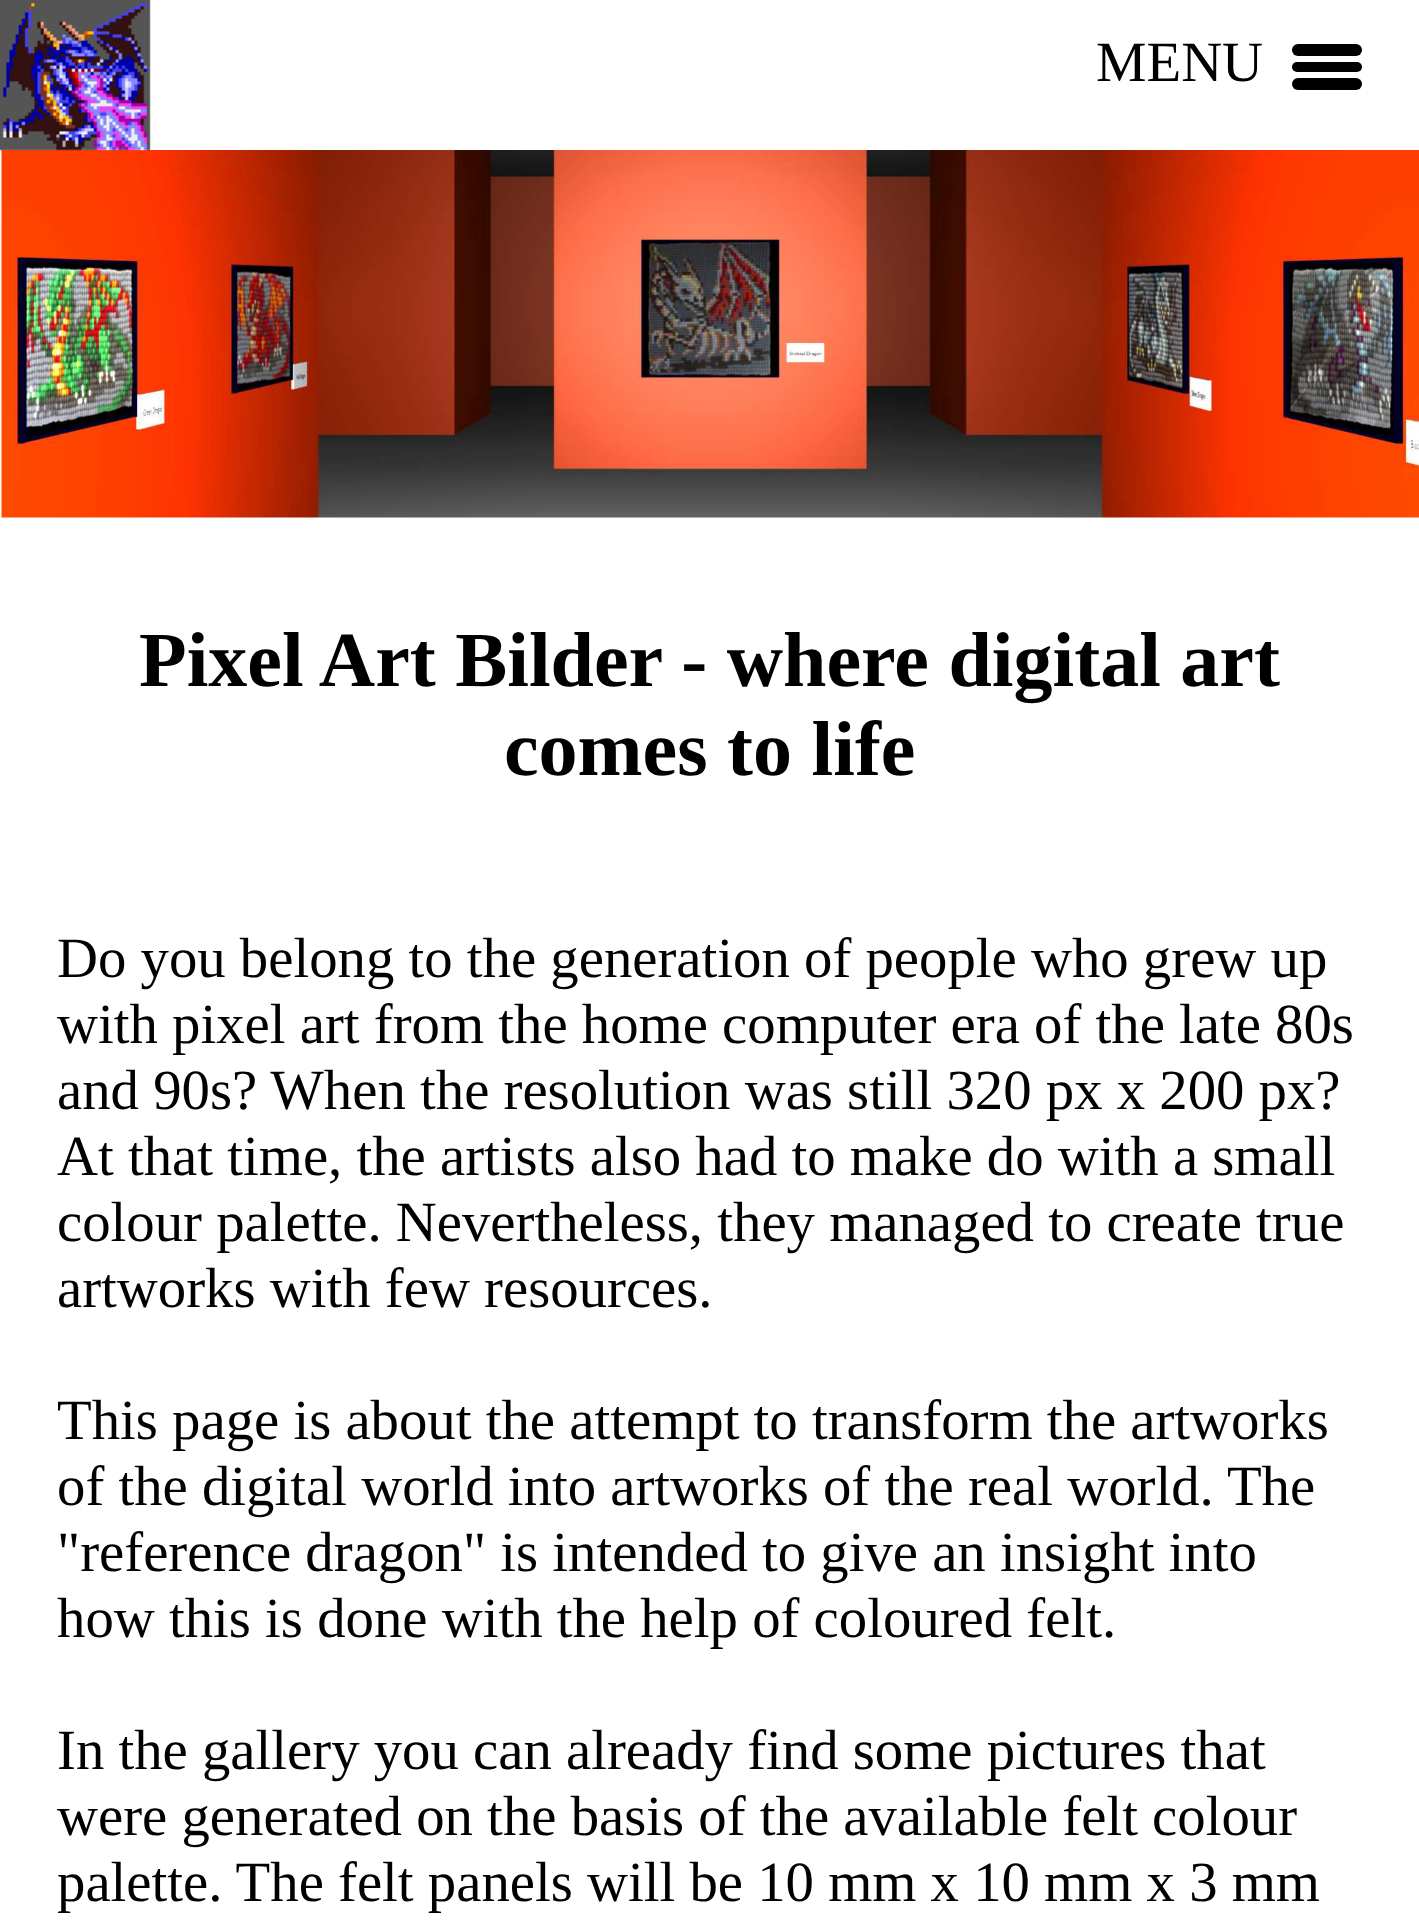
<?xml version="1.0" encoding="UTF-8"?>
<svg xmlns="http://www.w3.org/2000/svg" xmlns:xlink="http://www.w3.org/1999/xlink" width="1419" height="1926">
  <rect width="100%" height="100%" fill="#ffffff" />
  <image x="1" y="150" width="1418" height="368" xlink:href="image2.png" />
  <image x="0" y="0" width="151" height="151" xlink:href="image1.png" />
  <rect x="1292" y="44" width="70" height="12" rx="6" fill="#000000" />
  <rect x="1292" y="62" width="70" height="10" rx="5" fill="#000000" />
  <rect x="1292" y="78" width="70" height="12" rx="6" fill="#000000" />
  <text x="1096" y="81" style="font-family: Liberation Serif; font-size: 56.75px; fill: #000000">MENU</text>
  <text x="139" y="686" style="font-family: Liberation Serif; font-size: 78px; font-weight: bold; fill: #000000">Pixel Art Bilder - where digital art</text>
  <text x="504" y="775" style="font-family: Liberation Serif; font-size: 78px; font-weight: bold; fill: #000000">comes to life</text>
  <text x="57" y="977" style="font-family: Liberation Serif; font-size: 56.75px; fill: #000000">Do you belong to the generation of people who grew up</text>
  <text x="57" y="1043" style="font-family: Liberation Serif; font-size: 56.75px; fill: #000000">with pixel art from the home computer era of the late 80s</text>
  <text x="57" y="1109" style="font-family: Liberation Serif; font-size: 56.75px; fill: #000000">and 90s? When the resolution was still 320 px x 200 px?</text>
  <text x="57" y="1175" style="font-family: Liberation Serif; font-size: 56.75px; fill: #000000">At that time, the artists also had to make do with a small</text>
  <text x="57" y="1241" style="font-family: Liberation Serif; font-size: 56.75px; fill: #000000">colour palette. Nevertheless, they managed to create true</text>
  <text x="57" y="1307" style="font-family: Liberation Serif; font-size: 56.75px; fill: #000000">artworks with few resources.</text>
  <text x="57" y="1439" style="font-family: Liberation Serif; font-size: 56.75px; fill: #000000">This page is about the attempt to transform the artworks</text>
  <text x="57" y="1505" style="font-family: Liberation Serif; font-size: 56.75px; fill: #000000">of the digital world into artworks of the real world. The</text>
  <text x="57" y="1571" style="font-family: Liberation Serif; font-size: 56.75px; fill: #000000">"reference dragon" is intended to give an insight into</text>
  <text x="57" y="1637" style="font-family: Liberation Serif; font-size: 56.75px; fill: #000000">how this is done with the help of coloured felt.</text>
  <text x="57" y="1769" style="font-family: Liberation Serif; font-size: 56.75px; fill: #000000">In the gallery you can already find some pictures that</text>
  <text x="57" y="1835" style="font-family: Liberation Serif; font-size: 56.75px; fill: #000000">were generated on the basis of the available felt colour</text>
  <text x="57" y="1901" style="font-family: Liberation Serif; font-size: 56.75px; fill: #000000">palette. The felt panels will be 10 mm x 10 mm x 3 mm</text>
</svg>
